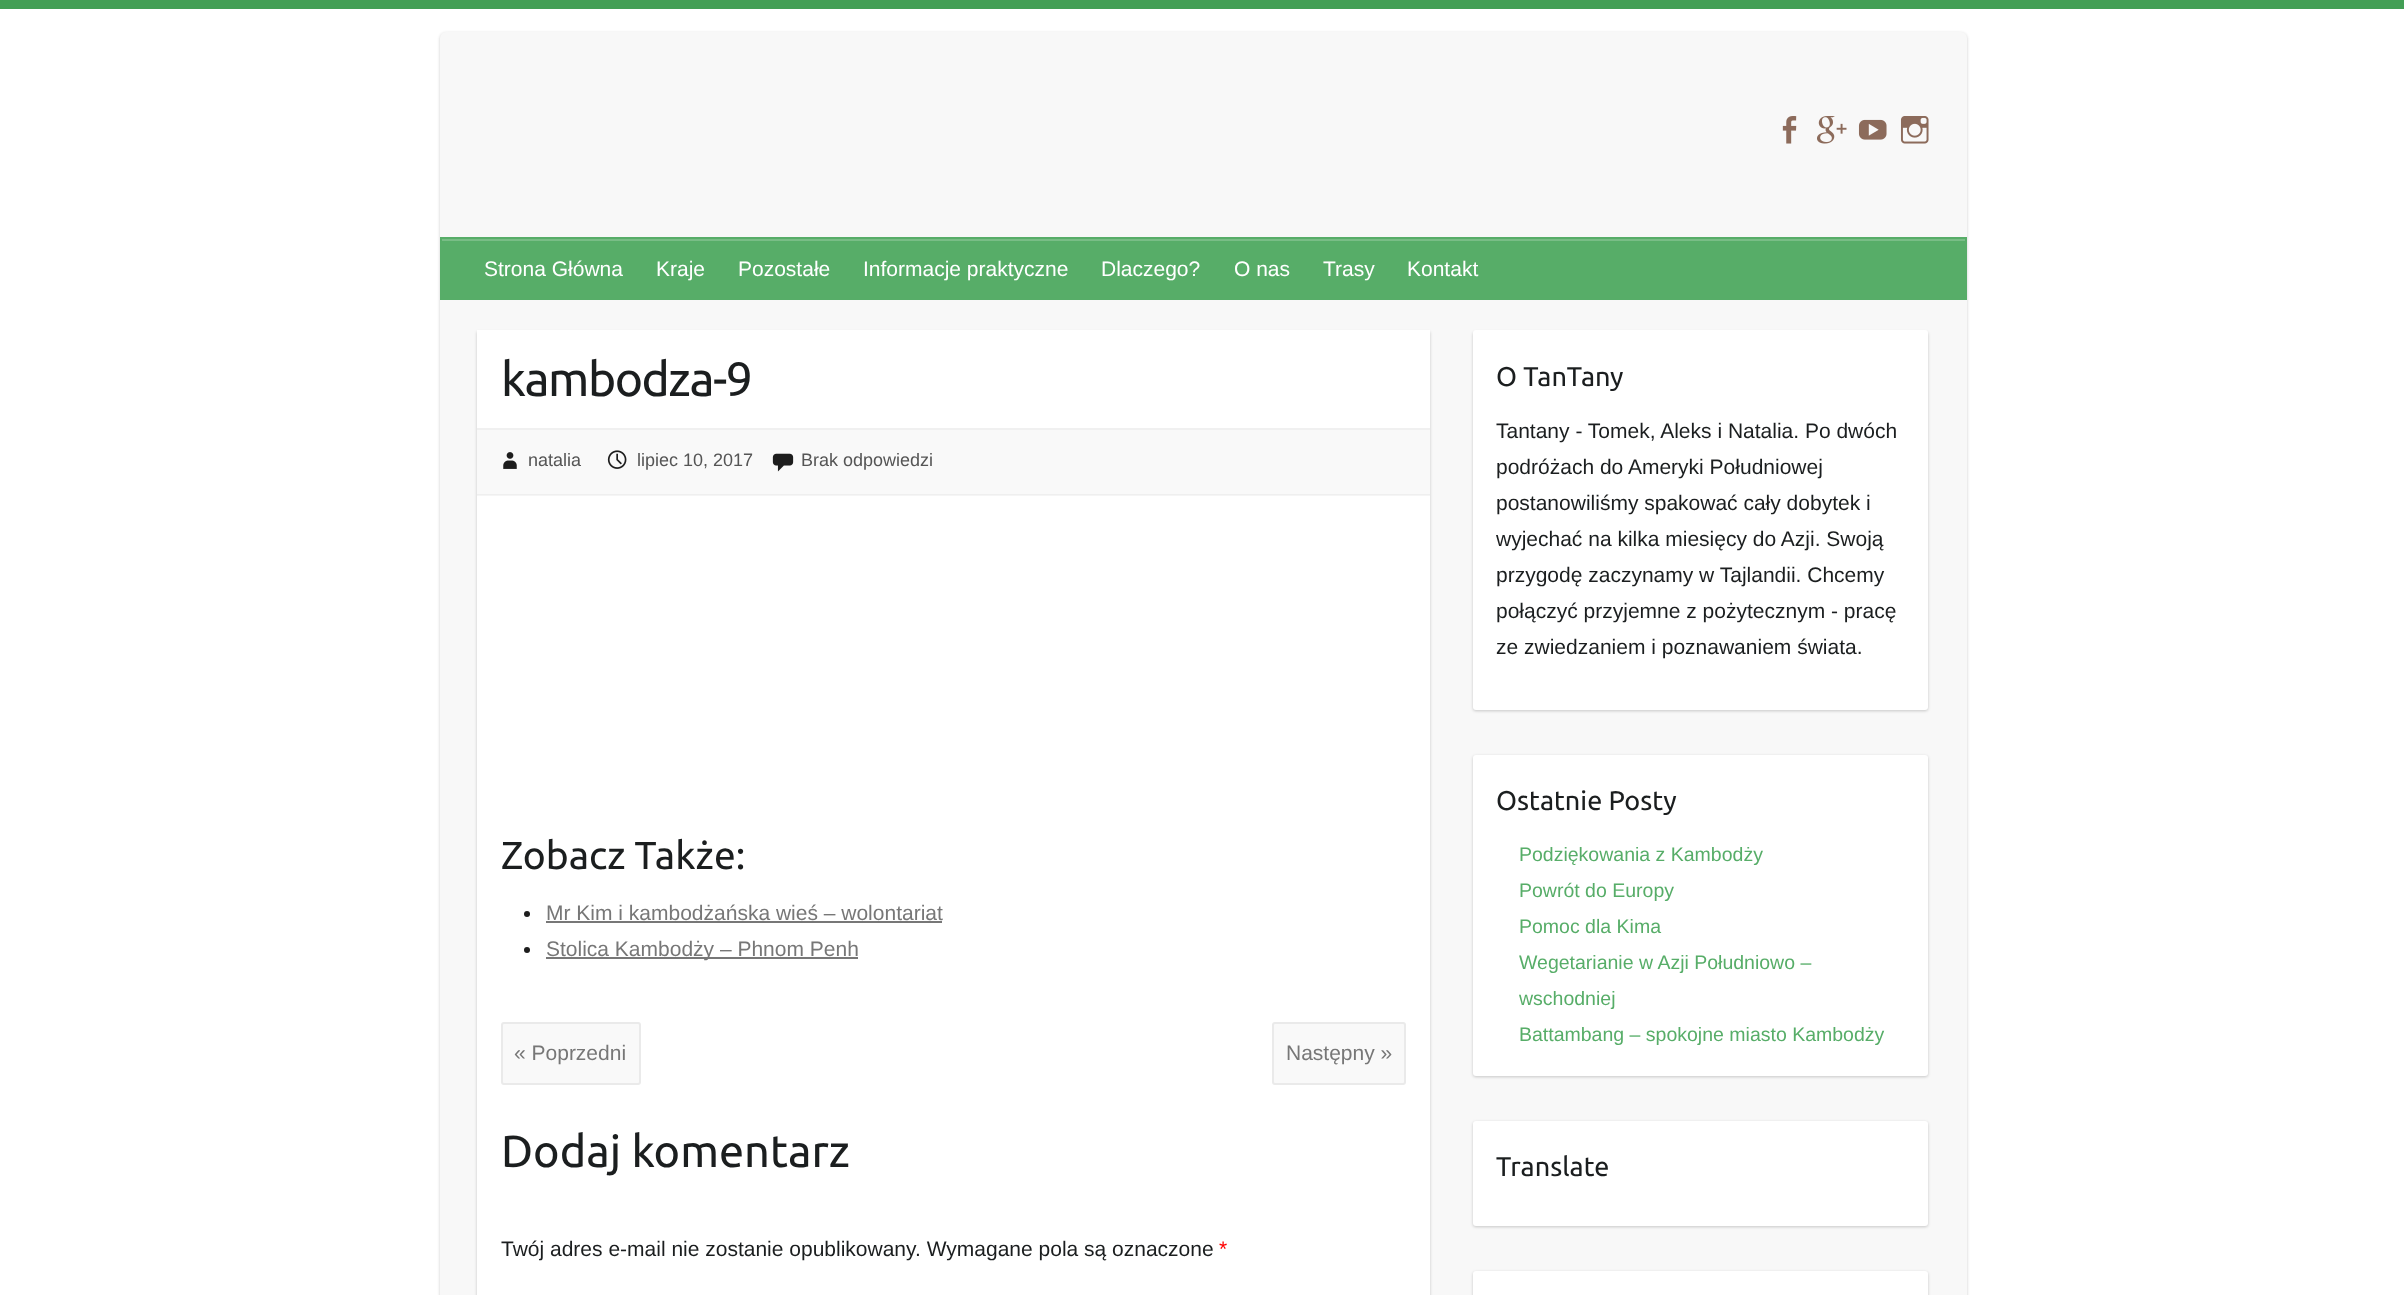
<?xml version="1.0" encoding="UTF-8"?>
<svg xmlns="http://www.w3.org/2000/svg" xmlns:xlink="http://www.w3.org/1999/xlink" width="2404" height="1295">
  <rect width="100%" height="100%" fill="#ffffff" />
  <rect width="2404" height="9" fill="#439f55" />
  <rect x="440" y="33" width="1527" height="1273" rx="6" fill="#000000" fill-opacity="0.2" filter="blur(1.5px)" />
  <rect x="440" y="32" width="1527" height="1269" rx="6" fill="#f8f8f8" />
  <image x="1782" y="116" width="15" height="28" xlink:href="image1.png" />
  <image x="1817" y="116" width="30" height="28" xlink:href="image2.png" />
  <image x="1858" y="119" width="29" height="21" xlink:href="image3.png" />
  <image x="1900" y="116" width="29" height="28" xlink:href="image4.png" />
  <rect x="442" y="241" width="1523" height="57" fill="#57ad68" />
  <rect x="441" y="239" width="1524" height="2" fill="#79bd86" />
  <rect x="441" y="238" width="1525" height="61" fill="none" stroke="#57ad68" stroke-width="2" />
  <rect x="477" y="332" width="953" height="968" fill="#000000" fill-opacity="0.2" filter="blur(1.5px)" />
  <rect x="477" y="330" width="953" height="965" fill="#ffffff" />
  <rect x="477" y="430" width="953" height="65" fill="#f9f9f9" />
  <rect x="477" y="428" width="953" height="2" fill="#f0f0f0" />
  <rect x="477" y="494" width="953" height="2" fill="#000000" fill-opacity="0.04" />
  <image x="503" y="452" width="14" height="17" xlink:href="image5.png" />
  <image x="607" y="450" width="20" height="19" xlink:href="image6.png" />
  <image x="772" y="453" width="22" height="19" xlink:href="image7.png" />
  <circle cx="527" cy="914" r="3" fill="#1d1d1d" />
  <rect x="546" y="921" width="396" height="2" fill="#777777" />
  <circle cx="527" cy="950" r="3" fill="#1d1d1d" />
  <rect x="546" y="957" width="312" height="2" fill="#777777" />
  <rect x="502" y="1023" width="138" height="61" rx="2" fill="#f9f9f9" stroke="#eaeaea" stroke-width="2" />
  <rect x="1273" y="1023" width="132" height="61" rx="2" fill="#f9f9f9" stroke="#eaeaea" stroke-width="2" />
  <rect x="1473" y="332" width="455" height="379" rx="3" fill="#000000" fill-opacity="0.2" filter="blur(1.5px)" />
  <rect x="1473" y="330" width="455" height="380" rx="3" fill="#ffffff" />
  <rect x="1473" y="756" width="455" height="321" rx="3" fill="#000000" fill-opacity="0.2" filter="blur(1.5px)" />
  <rect x="1473" y="755" width="455" height="321" rx="3" fill="#ffffff" />
  <rect x="1473" y="1122" width="455" height="105" rx="3" fill="#000000" fill-opacity="0.2" filter="blur(1.5px)" />
  <rect x="1473" y="1121" width="455" height="105" rx="3" fill="#ffffff" />
  <rect x="1473" y="1272" width="455" height="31" rx="3" fill="#000000" fill-opacity="0.2" filter="blur(1.5px)" />
  <rect x="1473" y="1271" width="455" height="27" rx="3" fill="#ffffff" />
  <text x="484" y="276" style="font-family: Liberation Sans; font-size: 21px; fill: #ffffff">Strona Główna</text>
  <text x="656" y="276" style="font-family: Liberation Sans; font-size: 21px; fill: #ffffff">Kraje</text>
  <text x="738" y="276" style="font-family: Liberation Sans; font-size: 21px; fill: #ffffff">Pozostałe</text>
  <text x="863" y="276" style="font-family: Liberation Sans; font-size: 21px; fill: #ffffff">Informacje praktyczne</text>
  <text x="1101" y="276" style="font-family: Liberation Sans; font-size: 21px; fill: #ffffff">Dlaczego?</text>
  <text x="1234" y="276" style="font-family: Liberation Sans; font-size: 21px; fill: #ffffff">O nas</text>
  <text x="1323" y="276" style="font-family: Liberation Sans; font-size: 21px; fill: #ffffff">Trasy</text>
  <text x="1407" y="276" style="font-family: Liberation Sans; font-size: 21px; fill: #ffffff">Kontakt</text>
  <text x="501" y="396" style="font-family: Ubuntu; font-size: 48px; letter-spacing: -1.5px; fill: #1b1e1f">kambodza-9</text>
  <text x="528" y="466" style="font-family: Liberation Sans; font-size: 18px; fill: #555555">natalia</text>
  <text x="637" y="466" style="font-family: Liberation Sans; font-size: 18px; fill: #555555">lipiec 10, 2017</text>
  <text x="801" y="466" style="font-family: Liberation Sans; font-size: 18px; fill: #555555">Brak odpowiedzi</text>
  <text x="501" y="869" style="font-family: Ubuntu; font-size: 39px; fill: #1b1e1f">Zobacz Także:</text>
  <text x="546" y="920" style="font-family: Liberation Sans; font-size: 21px; fill: #777777">Mr Kim i kambodżańska wieś – wolontariat</text>
  <text x="546" y="956" style="font-family: Liberation Sans; font-size: 21px; fill: #777777">Stolica Kambodży – Phnom Penh</text>
  <text x="514" y="1060" style="font-family: Liberation Sans; font-size: 21px; fill: #777777">« Poprzedni</text>
  <text x="1286" y="1060" style="font-family: Liberation Sans; font-size: 21px; fill: #777777">Następny »</text>
  <text x="501" y="1167" style="font-family: Ubuntu; font-size: 45px; fill: #1b1e1f">Dodaj komentarz</text>
  <text x="501" y="1256" style="font-family: Liberation Sans; font-size: 21px; fill: #1b1e1f">Twój adres e-mail nie zostanie opublikowany. Wymagane pola są oznaczone</text>
  <text x="1219" y="1256" style="font-family: Liberation Sans; font-size: 21px; fill: #ff0000">*</text>
  <text x="1496" y="386" style="font-family: Ubuntu; font-size: 27px; fill: #1b1e1f">O TanTany</text>
  <text x="1496" y="438" style="font-family: Liberation Sans; font-size: 21px; fill: #1b1e1f">Tantany - Tomek, Aleks i Natalia. Po dwóch</text>
  <text x="1496" y="474" style="font-family: Liberation Sans; font-size: 21px; fill: #1b1e1f">podróżach do Ameryki Południowej</text>
  <text x="1496" y="510" style="font-family: Liberation Sans; font-size: 21px; fill: #1b1e1f">postanowiliśmy spakować cały dobytek i</text>
  <text x="1496" y="546" style="font-family: Liberation Sans; font-size: 21px; fill: #1b1e1f">wyjechać na kilka miesięcy do Azji. Swoją</text>
  <text x="1496" y="582" style="font-family: Liberation Sans; font-size: 21px; fill: #1b1e1f">przygodę zaczynamy w Tajlandii. Chcemy</text>
  <text x="1496" y="618" style="font-family: Liberation Sans; font-size: 21px; fill: #1b1e1f">połączyć przyjemne z pożytecznym - pracę</text>
  <text x="1496" y="654" style="font-family: Liberation Sans; font-size: 21px; fill: #1b1e1f">ze zwiedzaniem i poznawaniem świata.</text>
  <text x="1496" y="810" style="font-family: Ubuntu; font-size: 27px; fill: #1b1e1f">Ostatnie Posty</text>
  <text x="1519" y="861" style="font-family: Liberation Sans; font-size: 19.5px; fill: #57ad68">Podziękowania z Kambodży</text>
  <text x="1519" y="897" style="font-family: Liberation Sans; font-size: 19.5px; fill: #57ad68">Powrót do Europy</text>
  <text x="1519" y="933" style="font-family: Liberation Sans; font-size: 19.5px; fill: #57ad68">Pomoc dla Kima</text>
  <text x="1519" y="969" style="font-family: Liberation Sans; font-size: 19.5px; fill: #57ad68">Wegetarianie w Azji Południowo –</text>
  <text x="1519" y="1005" style="font-family: Liberation Sans; font-size: 19.5px; fill: #57ad68">wschodniej</text>
  <text x="1519" y="1041" style="font-family: Liberation Sans; font-size: 19.5px; fill: #57ad68">Battambang – spokojne miasto Kambodży</text>
  <text x="1496" y="1176" style="font-family: Ubuntu; font-size: 27px; fill: #1b1e1f">Translate</text>
</svg>
